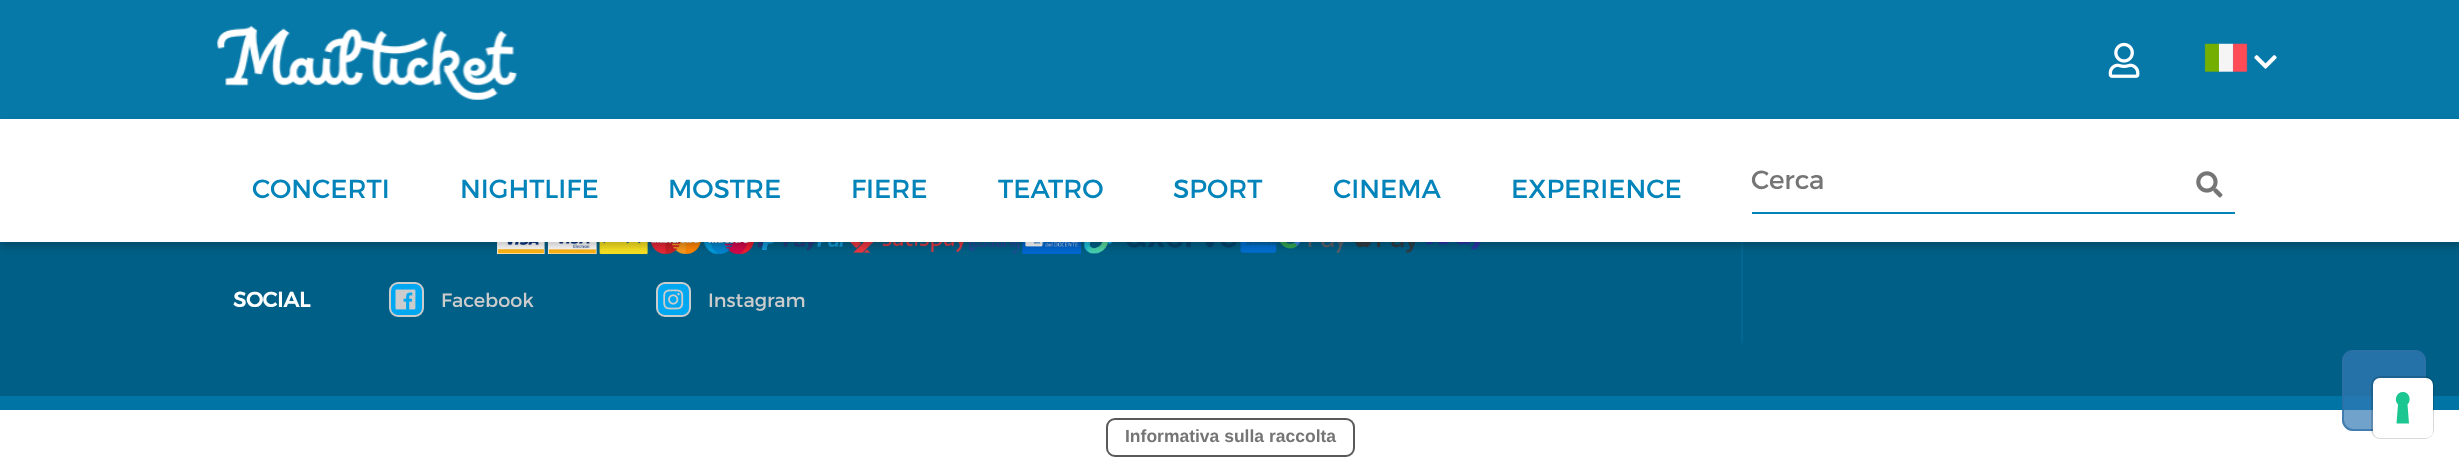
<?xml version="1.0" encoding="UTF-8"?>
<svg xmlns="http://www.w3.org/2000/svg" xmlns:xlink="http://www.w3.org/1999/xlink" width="2459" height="464">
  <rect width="100%" height="100%" fill="#ffffff" />
  <rect width="2459" height="119" fill="#0679a9" />
  <image x="217" y="26" width="300" height="74" xlink:href="image1.png" />
  <image x="2108" y="42" width="32" height="36" xlink:href="image2.png" />
  <image x="2204" y="43" width="44" height="29" xlink:href="image3.png" />
  <image x="2254" y="55" width="23" height="14" xlink:href="image4.png" />
  <rect y="242" width="2459" height="154" fill="#005f86" />
  <rect x="1741" y="242" width="2" height="101" fill="#016893" />
  <image x="497" y="242" width="984" height="13" xlink:href="image6.png" />
  <rect y="124" width="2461" height="123" fill="#000000" fill-opacity="0.2" filter="blur(3.5px)" />
  <rect y="119" width="2459" height="123" fill="#ffffff" />
  <rect x="1752" y="212" width="483" height="2" fill="#0284ba" />
  <image x="2196" y="171" width="27" height="27" xlink:href="image5.png" />
  <rect y="396" width="2459" height="14" fill="#0074a4" />
  <rect x="390" y="283" width="33" height="33" rx="8" fill="#00a8f1" stroke="#cccccc" stroke-width="2" />
  <image x="395" y="289" width="21" height="21" xlink:href="image7.png" />
  <rect x="657" y="283" width="33" height="33" rx="8" fill="#00a8f1" stroke="#cccccc" stroke-width="2" />
  <image x="663" y="289" width="21" height="21" xlink:href="image8.png" />
  <rect x="2342" y="350" width="84" height="81" rx="11" fill="#337ab7" fill-opacity="0.7" />
  <rect x="2343" y="351" width="82" height="79" rx="10" fill="none" stroke="#2e6da4" stroke-opacity="0.7" stroke-width="2" />
  <rect x="1107" y="419" width="247" height="37" rx="8" fill="none" stroke="#595959" stroke-width="2" />
  <rect x="2372" y="377" width="61" height="61" rx="8" fill="none" stroke="#000000" stroke-opacity="0.15" stroke-width="2" />
  <rect x="2373" y="378" width="60" height="60" rx="7" fill="#ffffff" />
  <path d="M 2403 392 c 6 0 9 8 4.5 12.5 l 1.5 19 h -12.5 l 1.5 -19 c -4.5 -4.5 -1.5 -12.5 5 -12.5 z" fill="#1cc691" fill-rule="evenodd" />
  <text x="252" y="198" style="font-family: Montserrat; font-size: 26.25px; fill: #0284ba">CONCERTI</text>
  <text x="460" y="198" style="font-family: Montserrat; font-size: 26.25px; fill: #0284ba">NIGHTLIFE</text>
  <text x="668" y="198" style="font-family: Montserrat; font-size: 26.25px; fill: #0284ba">MOSTRE</text>
  <text x="851" y="198" style="font-family: Montserrat; font-size: 26.25px; fill: #0284ba">FIERE</text>
  <text x="998" y="198" style="font-family: Montserrat; font-size: 26.25px; fill: #0284ba">TEATRO</text>
  <text x="1173" y="198" style="font-family: Montserrat; font-size: 26.25px; fill: #0284ba">SPORT</text>
  <text x="1333" y="198" style="font-family: Montserrat; font-size: 26.25px; fill: #0284ba">CINEMA</text>
  <text x="1511" y="198" style="font-family: Montserrat; font-size: 26.25px; fill: #0284ba">EXPERIENCE</text>
  <text x="1751" y="189" style="font-family: Montserrat; font-size: 26.25px; fill: #757575">Cerca</text>
  <text x="233" y="307" style="font-family: Montserrat; font-size: 21px; font-weight: bold; fill: #ffffff">SOCIAL</text>
  <text x="441" y="307" style="font-family: Montserrat; font-size: 19.25px; fill: #cccccc">Facebook</text>
  <text x="708" y="307" style="font-family: Montserrat; font-size: 19.25px; fill: #cccccc">Instagram</text>
  <text x="1125" y="442" style="font-family: Liberation Sans; font-size: 17.5px; font-weight: bold; fill: #757575">Informativa sulla raccolta</text>
</svg>
